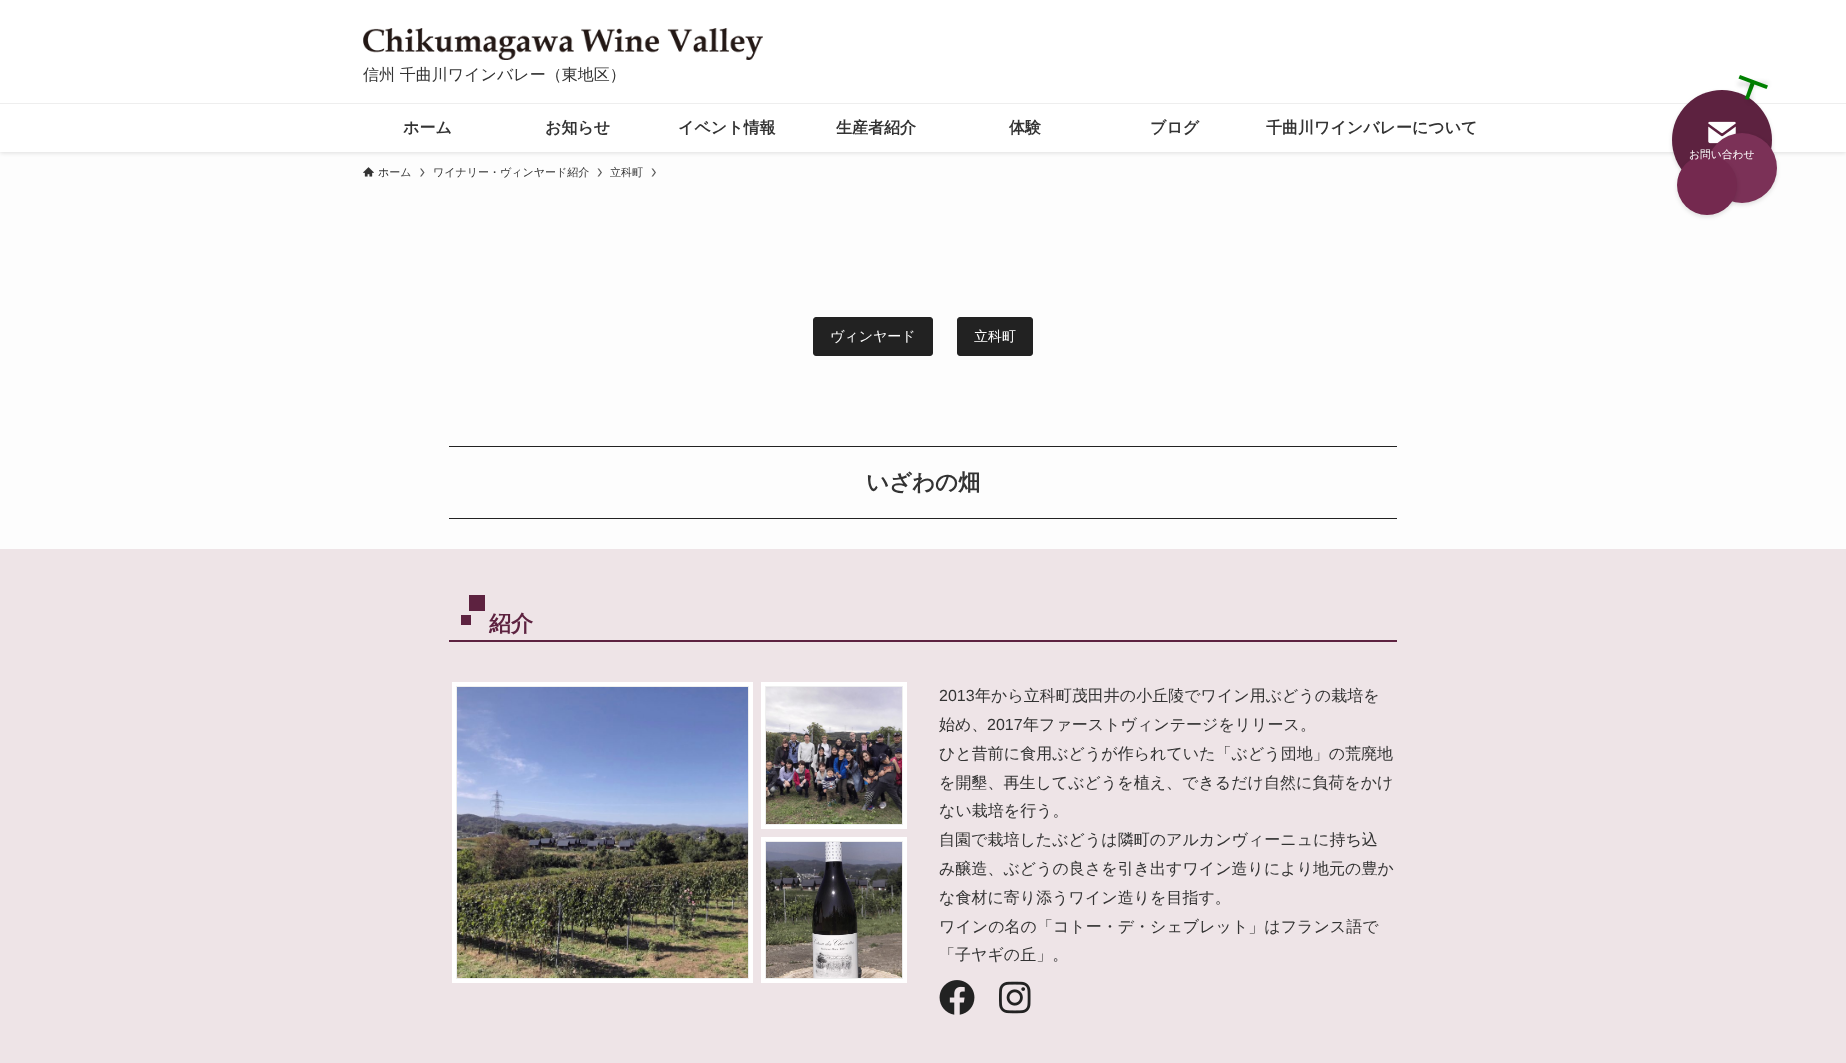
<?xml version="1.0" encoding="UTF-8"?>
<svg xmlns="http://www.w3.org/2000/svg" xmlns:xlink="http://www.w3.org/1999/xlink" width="1846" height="1063">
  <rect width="100%" height="100%" fill="#fdfdfd" />
  <rect y="1" width="1846" height="152" fill="#000000" fill-opacity="0.12" filter="blur(2px)" />
  <rect width="1846" height="152" fill="#ffffff" />
  <image x="363" y="28" width="400" height="32" xlink:href="image1.png" />
  <rect y="103" width="1846" height="1" fill="#eeeeee" />
  <rect x="1672" y="92" width="100" height="100" rx="50" fill="#000000" fill-opacity="0.12" filter="blur(2px)" />
  <circle cx="1722" cy="140" r="50" fill="#5d2240" />
  <rect x="1748" y="82" width="4" height="20" fill="#000000" fill-opacity="0.12" filter="blur(2px)" />
  <path d="M 1751.5 80 l 4 1.5 l -7 18.5 l -3.5 -1.5 z" fill="#008000" />
  <rect x="1738" y="82" width="30" height="4" fill="#000000" fill-opacity="0.12" filter="blur(2px)" />
  <path d="M 1740 75 l 28 10.5 l -1.5 3.5 l -28 -10.5 z" fill="#008000" />
  <image x="1708" y="121" width="28" height="23" xlink:href="image2.png" />
  <rect x="1707" y="135" width="70" height="70" rx="35" fill="#000000" fill-opacity="0.12" filter="blur(2px)" />
  <circle cx="1742" cy="168" r="35" fill="#7b3157" />
  <rect x="1677" y="157" width="60" height="60" rx="30" fill="#000000" fill-opacity="0.12" filter="blur(2px)" />
  <circle cx="1707" cy="185" r="30" fill="#74294f" />
  <image x="363" y="167" width="11" height="10" xlink:href="image3.png" />
  <path d="M 421.5 168.5 h -1.5 l 3 4 l -3 4 h 1.5 l 3 -4 z" fill="#5b5b5b" />
  <path d="M 599 168.5 h -1.5 l 3 4 l -3 4 h 1.5 l 3 -4 z" fill="#5b5b5b" />
  <path d="M 653 168.5 h -1.5 l 3 4 l -3 4 h 1.5 l 3 -4 z" fill="#5b5b5b" />
  <rect x="813.5" y="317.5" width="119" height="38" rx="2.5" fill="#222222" stroke="#222222" />
  <rect x="957.5" y="317.5" width="75" height="38" rx="2.5" fill="#222222" stroke="#222222" />
  <rect x="449" y="446" width="948" height="1" fill="#222222" />
  <rect x="449" y="518" width="948" height="1" fill="#222222" />
  <rect y="549" width="1846" height="514" fill="#eee4e7" />
  <rect x="449" y="640" width="948" height="2" fill="#5d2240" />
  <rect x="469" y="595" width="16" height="16" fill="#5d2240" />
  <rect x="461" y="615" width="10" height="10" fill="#5d2240" />
  <rect x="452" y="682" width="301" height="301" fill="#ffffff" />
  <rect x="456.5" y="686.5" width="292" height="292" fill="none" stroke="#eeeeee" />
  <image x="457" y="687" width="291" height="291" xlink:href="image4.png" />
  <rect x="761" y="682" width="146" height="147" fill="#ffffff" />
  <rect x="765.5" y="686.5" width="137" height="138" fill="none" stroke="#eeeeee" />
  <image x="766" y="687" width="136" height="137" xlink:href="image5.png" />
  <rect x="761" y="837" width="146" height="146" fill="#ffffff" />
  <rect x="765.5" y="841.5" width="137" height="137" fill="none" stroke="#eeeeee" />
  <image x="766" y="842" width="136" height="136" xlink:href="image6.png" />
  <image x="939" y="980" width="36" height="35" xlink:href="image7.png" />
  <image x="999" y="981" width="32" height="33" xlink:href="image8.png" />
  <text x="363" y="80" style="font-family: WenQuanYi Zen Hei; font-size: 16px; font-weight: 500; fill: #333333">信州 千曲川ワインバレー（東地区）</text>
  <text x="403" y="133" style="font-family: WenQuanYi Zen Hei; font-size: 16px; font-weight: bold; fill: #333333">ホーム</text>
  <text x="545" y="133" style="font-family: WenQuanYi Zen Hei; font-size: 16px; font-weight: bold; fill: #333333">お知らせ</text>
  <text x="678" y="133" style="font-family: WenQuanYi Zen Hei; font-size: 16px; font-weight: bold; fill: #333333">イベント情報</text>
  <text x="836" y="133" style="font-family: WenQuanYi Zen Hei; font-size: 16px; font-weight: bold; fill: #333333">生産者紹介</text>
  <text x="1009" y="133" style="font-family: WenQuanYi Zen Hei; font-size: 16px; font-weight: bold; fill: #333333">体験</text>
  <text x="1150" y="133" style="font-family: WenQuanYi Zen Hei; font-size: 16px; font-weight: bold; fill: #333333">ブログ</text>
  <text x="1266" y="133" style="font-family: WenQuanYi Zen Hei; font-size: 16px; font-weight: bold; fill: #333333">千曲川ワインバレーについて</text>
  <text x="1689" y="158" style="font-family: WenQuanYi Zen Hei; font-size: 10.75px; font-weight: 500; fill: #ffffff">お問い合わせ</text>
  <text x="378" y="176" style="font-family: WenQuanYi Zen Hei; font-size: 11px; font-weight: 500; fill: #333333">ホーム</text>
  <text x="433" y="176" style="font-family: WenQuanYi Zen Hei; font-size: 11px; font-weight: 500; fill: #333333">ワイナリー・ヴィンヤード紹介</text>
  <text x="610" y="176" style="font-family: WenQuanYi Zen Hei; font-size: 11px; font-weight: 500; fill: #333333">立科町</text>
  <text x="830" y="341" style="font-family: WenQuanYi Zen Hei; font-size: 14px; font-weight: 500; fill: #ffffff">ヴィンヤード</text>
  <text x="974" y="341" style="font-family: WenQuanYi Zen Hei; font-size: 14px; font-weight: 500; fill: #ffffff">立科町</text>
  <text x="866" y="490" style="font-family: WenQuanYi Zen Hei; font-size: 22.5px; font-weight: bold; fill: #333333">いざわの畑</text>
  <text x="489" y="631" style="font-family: WenQuanYi Zen Hei; font-size: 22px; font-weight: bold; fill: #5d2240">紹介</text>
  <text x="939" y="701" style="font-family: Liberation Sans; font-size: 16px; fill: #333333">2013</text>
  <text x="975" y="701" style="font-family: WenQuanYi Zen Hei; font-size: 16px; font-weight: 500; fill: #333333">年から立科町茂田井の小丘陵でワイン用ぶどうの栽培を</text>
  <text x="939" y="730" style="font-family: WenQuanYi Zen Hei; font-size: 16px; font-weight: 500; fill: #333333">始め、</text>
  <text x="987" y="730" style="font-family: Liberation Sans; font-size: 16px; fill: #333333">2017</text>
  <text x="1023" y="730" style="font-family: WenQuanYi Zen Hei; font-size: 16px; font-weight: 500; fill: #333333">年ファーストヴィンテージをリリース。</text>
  <text x="939" y="759" style="font-family: WenQuanYi Zen Hei; font-size: 16px; font-weight: 500; fill: #333333">ひと昔前に食用ぶどうが作られていた「ぶどう団地」の荒廃地</text>
  <text x="939" y="788" style="font-family: WenQuanYi Zen Hei; font-size: 16px; font-weight: 500; fill: #333333">を開墾、再生してぶどうを植え、できるだけ自然に負荷をかけ</text>
  <text x="939" y="816" style="font-family: WenQuanYi Zen Hei; font-size: 16px; font-weight: 500; fill: #333333">ない栽培を行う。</text>
  <text x="939" y="845" style="font-family: WenQuanYi Zen Hei; font-size: 16px; font-weight: 500; fill: #333333">自園で栽培したぶどうは隣町のアルカンヴィーニュに持ち込</text>
  <text x="939" y="874" style="font-family: WenQuanYi Zen Hei; font-size: 16px; font-weight: 500; fill: #333333">み醸造、ぶどうの良さを引き出すワイン造りにより地元の豊か</text>
  <text x="939" y="903" style="font-family: WenQuanYi Zen Hei; font-size: 16px; font-weight: 500; fill: #333333">な食材に寄り添うワイン造りを目指す。</text>
  <text x="939" y="932" style="font-family: WenQuanYi Zen Hei; font-size: 16px; font-weight: 500; fill: #333333">ワインの名の「コトー・デ・シェブレット」はフランス語で</text>
  <text x="939" y="960" style="font-family: WenQuanYi Zen Hei; font-size: 16px; font-weight: 500; fill: #333333">「子ヤギの丘」。</text>
</svg>
